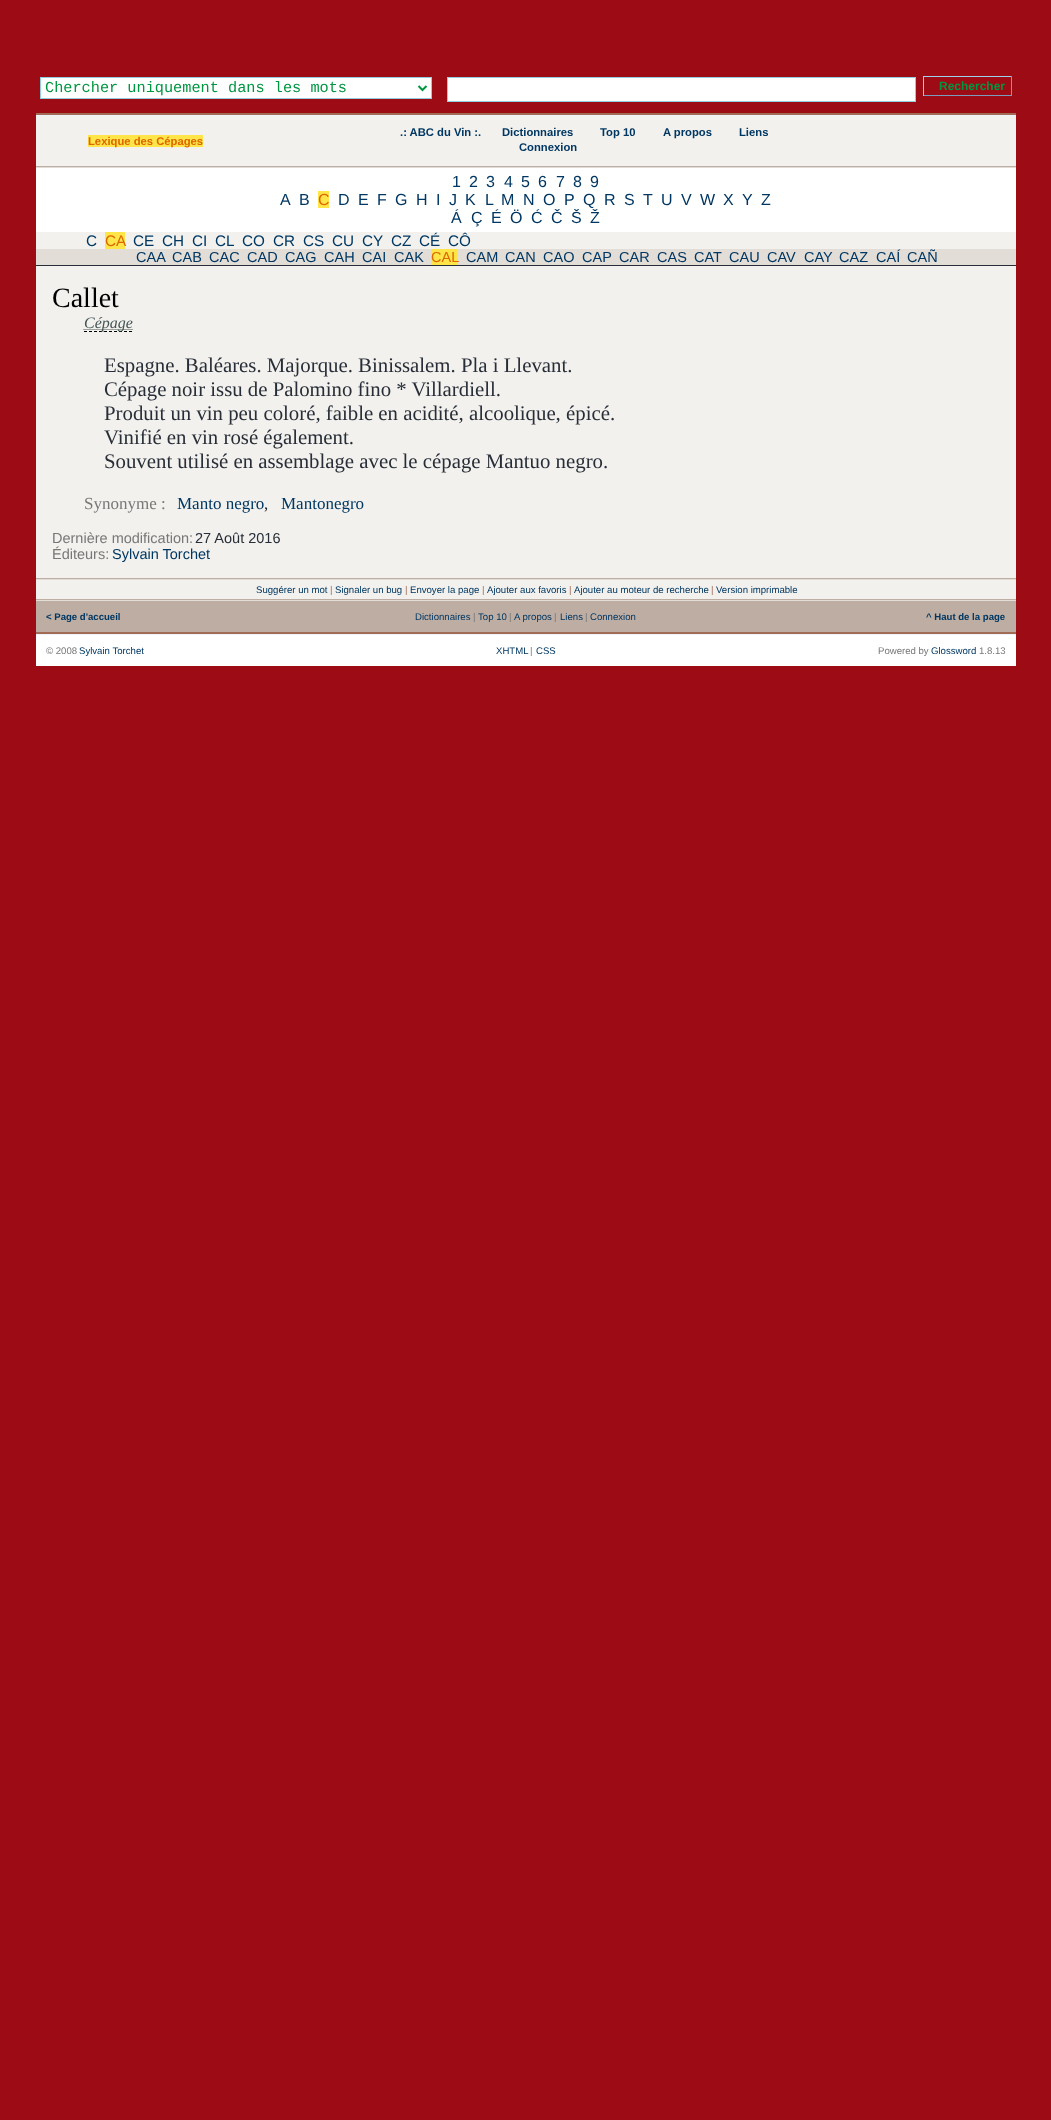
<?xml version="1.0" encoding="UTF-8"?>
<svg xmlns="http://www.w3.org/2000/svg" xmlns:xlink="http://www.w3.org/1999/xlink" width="1051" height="2120">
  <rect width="100%" height="100%" fill="#9d0c15" />
  <rect x="40.5" y="77.5" width="391" height="21" fill="#ffffff" stroke="#92cddc" />
  <path d="M 418.5 86 l 4 4 l 4 -4" fill="none" stroke="#009641" stroke-width="2" />
  <rect x="447.5" y="77.5" width="468" height="24" fill="#ffffff" stroke="#92cddc" />
  <rect x="923" y="76" width="89" height="1" fill="#a0d0ec" />
  <rect x="1011" y="76" width="1" height="20" fill="#7b9cbc" />
  <rect x="923" y="95" width="89" height="1" fill="#7b9cbc" />
  <rect x="923" y="76" width="1" height="20" fill="#a0d0ec" />
  <rect x="36" y="115" width="980" height="1" fill="#edf2fd" />
  <rect x="36" y="113" width="980" height="2" fill="#a26b55" />
  <rect x="36" y="116" width="980" height="50" fill="#f2f1ee" />
  <rect x="88" y="135" width="115" height="12" fill="#ffe547" />
  <rect x="36" y="167" width="980" height="1" fill="#e2ddd7" />
  <rect x="36" y="166" width="980" height="1" fill="#beada3" />
  <rect x="36" y="168" width="980" height="64" fill="#ffffff" />
  <rect x="318" y="191" width="11" height="17" fill="#ffe547" />
  <rect x="36" y="232" width="980" height="17" fill="#f2f1ee" />
  <rect x="105" y="232" width="20" height="17" fill="#ffe547" />
  <rect x="36" y="249" width="980" height="16" fill="#e2ddd7" />
  <rect x="36" y="265" width="980" height="1" fill="#282e37" />
  <rect x="431" y="249" width="27" height="16" fill="#ffe547" />
  <rect x="36" y="266" width="980" height="312" fill="#f2f1ee" />
  <path d="M 84 331.5 h 48" fill="none" stroke="#000000" stroke-dasharray="3 2" />
  <path d="M 83.5 329.5 h 49" fill="none" stroke="#445555" stroke-dasharray="1 1" />
  <rect x="36" y="579" width="980" height="1" fill="#e2ddd7" />
  <rect x="36" y="578" width="980" height="1" fill="#beada3" />
  <rect x="36" y="580" width="980" height="19" fill="#f2f1ee" />
  <rect x="36" y="600" width="980" height="1" fill="#e2ddd7" />
  <rect x="36" y="599" width="980" height="1" fill="#beada3" />
  <rect x="36" y="601" width="980" height="31" fill="#beada3" />
  <rect x="36" y="634" width="980" height="1" fill="#edf2fd" />
  <rect x="36" y="632" width="980" height="2" fill="#a26b55" />
  <rect x="36" y="635" width="980" height="31" fill="#ffffff" />
  <text x="45" y="92" style="font-family: Liberation Mono; font-size: 15.25px; fill: #009641">Chercher uniquement dans les mots</text>
  <text x="939" y="90" style="font-family: Liberation Sans; font-size: 12px; font-weight: bold; fill: #009641">Rechercher</text>
  <text x="88" y="145" style="font-family: Liberation Sans; font-size: 11.25px; font-weight: bold; fill: #dd6600">Lexique des Cépages</text>
  <text x="400" y="136" style="font-family: Liberation Sans; font-size: 11.25px; font-weight: bold; fill: #003762">.: ABC du Vin :.</text>
  <text x="502" y="136" style="font-family: Liberation Sans; font-size: 11.25px; font-weight: bold; fill: #003762">Dictionnaires</text>
  <text x="600" y="136" style="font-family: Liberation Sans; font-size: 11.25px; font-weight: bold; fill: #003762">Top 10</text>
  <text x="663" y="136" style="font-family: Liberation Sans; font-size: 11.25px; font-weight: bold; fill: #003762">A propos</text>
  <text x="739" y="136" style="font-family: Liberation Sans; font-size: 11.25px; font-weight: bold; fill: #003762">Liens</text>
  <text x="519" y="151" style="font-family: Liberation Sans; font-size: 11.25px; font-weight: bold; fill: #003762">Connexion</text>
  <text x="452" y="187" style="font-family: Liberation Sans; font-size: 16px; fill: #003762">1</text>
  <text x="469" y="187" style="font-family: Liberation Sans; font-size: 16px; fill: #003762">2</text>
  <text x="486" y="187" style="font-family: Liberation Sans; font-size: 16px; fill: #003762">3</text>
  <text x="504" y="187" style="font-family: Liberation Sans; font-size: 16px; fill: #003762">4</text>
  <text x="521" y="187" style="font-family: Liberation Sans; font-size: 16px; fill: #003762">5</text>
  <text x="538" y="187" style="font-family: Liberation Sans; font-size: 16px; fill: #003762">6</text>
  <text x="556" y="187" style="font-family: Liberation Sans; font-size: 16px; fill: #003762">7</text>
  <text x="573" y="187" style="font-family: Liberation Sans; font-size: 16px; fill: #003762">8</text>
  <text x="590" y="187" style="font-family: Liberation Sans; font-size: 16px; fill: #003762">9</text>
  <text x="280" y="205" style="font-family: Liberation Sans; font-size: 16px; fill: #003762">A</text>
  <text x="299" y="205" style="font-family: Liberation Sans; font-size: 16px; fill: #003762">B</text>
  <text x="318" y="205" style="font-family: Liberation Sans; font-size: 16px; fill: #dd6600">C</text>
  <text x="338" y="205" style="font-family: Liberation Sans; font-size: 16px; fill: #003762">D</text>
  <text x="358" y="205" style="font-family: Liberation Sans; font-size: 16px; fill: #003762">E</text>
  <text x="377" y="205" style="font-family: Liberation Sans; font-size: 16px; fill: #003762">F</text>
  <text x="395" y="205" style="font-family: Liberation Sans; font-size: 16px; fill: #003762">G</text>
  <text x="416" y="205" style="font-family: Liberation Sans; font-size: 16px; fill: #003762">H</text>
  <text x="436" y="205" style="font-family: Liberation Sans; font-size: 16px; fill: #003762">I</text>
  <text x="449" y="205" style="font-family: Liberation Sans; font-size: 16px; fill: #003762">J</text>
  <text x="465" y="205" style="font-family: Liberation Sans; font-size: 16px; fill: #003762">K</text>
  <text x="485" y="205" style="font-family: Liberation Sans; font-size: 16px; fill: #003762">L</text>
  <text x="501" y="205" style="font-family: Liberation Sans; font-size: 16px; fill: #003762">M</text>
  <text x="523" y="205" style="font-family: Liberation Sans; font-size: 16px; fill: #003762">N</text>
  <text x="543" y="205" style="font-family: Liberation Sans; font-size: 16px; fill: #003762">O</text>
  <text x="564" y="205" style="font-family: Liberation Sans; font-size: 16px; fill: #003762">P</text>
  <text x="583" y="205" style="font-family: Liberation Sans; font-size: 16px; fill: #003762">Q</text>
  <text x="604" y="205" style="font-family: Liberation Sans; font-size: 16px; fill: #003762">R</text>
  <text x="624" y="205" style="font-family: Liberation Sans; font-size: 16px; fill: #003762">S</text>
  <text x="643" y="205" style="font-family: Liberation Sans; font-size: 16px; fill: #003762">T</text>
  <text x="661" y="205" style="font-family: Liberation Sans; font-size: 16px; fill: #003762">U</text>
  <text x="681" y="205" style="font-family: Liberation Sans; font-size: 16px; fill: #003762">V</text>
  <text x="700" y="205" style="font-family: Liberation Sans; font-size: 16px; fill: #003762">W</text>
  <text x="723" y="205" style="font-family: Liberation Sans; font-size: 16px; fill: #003762">X</text>
  <text x="742" y="205" style="font-family: Liberation Sans; font-size: 16px; fill: #003762">Y</text>
  <text x="761" y="205" style="font-family: Liberation Sans; font-size: 16px; fill: #003762">Z</text>
  <text x="451" y="223" style="font-family: Liberation Sans; font-size: 16px; fill: #003762">Á</text>
  <text x="471" y="223" style="font-family: Liberation Sans; font-size: 16px; fill: #003762">Ç</text>
  <text x="491" y="223" style="font-family: Liberation Sans; font-size: 16px; fill: #003762">É</text>
  <text x="510" y="223" style="font-family: Liberation Sans; font-size: 16px; fill: #003762">Ö</text>
  <text x="531" y="223" style="font-family: Liberation Sans; font-size: 16px; fill: #003762">Ć</text>
  <text x="551" y="223" style="font-family: Liberation Sans; font-size: 16px; fill: #003762">Č</text>
  <text x="571" y="223" style="font-family: Liberation Sans; font-size: 16px; fill: #003762">Š</text>
  <text x="590" y="223" style="font-family: Liberation Sans; font-size: 16px; fill: #003762">Ž</text>
  <text x="86" y="246" style="font-family: Liberation Sans; font-size: 15.25px; fill: #003762">C</text>
  <text x="105" y="246" style="font-family: Liberation Sans; font-size: 15.25px; fill: #dd6600">CA</text>
  <text x="133" y="246" style="font-family: Liberation Sans; font-size: 15.25px; fill: #003762">CE</text>
  <text x="162" y="246" style="font-family: Liberation Sans; font-size: 15.25px; fill: #003762">CH</text>
  <text x="192" y="246" style="font-family: Liberation Sans; font-size: 15.25px; fill: #003762">CI</text>
  <text x="215" y="246" style="font-family: Liberation Sans; font-size: 15.25px; fill: #003762">CL</text>
  <text x="242" y="246" style="font-family: Liberation Sans; font-size: 15.25px; fill: #003762">CO</text>
  <text x="273" y="246" style="font-family: Liberation Sans; font-size: 15.25px; fill: #003762">CR</text>
  <text x="303" y="246" style="font-family: Liberation Sans; font-size: 15.25px; fill: #003762">CS</text>
  <text x="332" y="246" style="font-family: Liberation Sans; font-size: 15.25px; fill: #003762">CU</text>
  <text x="362" y="246" style="font-family: Liberation Sans; font-size: 15.25px; fill: #003762">CY</text>
  <text x="391" y="246" style="font-family: Liberation Sans; font-size: 15.25px; fill: #003762">CZ</text>
  <text x="419" y="246" style="font-family: Liberation Sans; font-size: 15.25px; fill: #003762">CÉ</text>
  <text x="448" y="246" style="font-family: Liberation Sans; font-size: 15.25px; fill: #003762">CÔ</text>
  <text x="136" y="262" style="font-family: Liberation Sans; font-size: 14.5px; fill: #003762">CAA</text>
  <text x="172" y="262" style="font-family: Liberation Sans; font-size: 14.5px; fill: #003762">CAB</text>
  <text x="209" y="262" style="font-family: Liberation Sans; font-size: 14.5px; fill: #003762">CAC</text>
  <text x="247" y="262" style="font-family: Liberation Sans; font-size: 14.5px; fill: #003762">CAD</text>
  <text x="285" y="262" style="font-family: Liberation Sans; font-size: 14.5px; fill: #003762">CAG</text>
  <text x="324" y="262" style="font-family: Liberation Sans; font-size: 14.5px; fill: #003762">CAH</text>
  <text x="362" y="262" style="font-family: Liberation Sans; font-size: 14.5px; fill: #003762">CAI</text>
  <text x="394" y="262" style="font-family: Liberation Sans; font-size: 14.5px; fill: #003762">CAK</text>
  <text x="431" y="262" style="font-family: Liberation Sans; font-size: 14.5px; fill: #dd6600">CAL</text>
  <text x="466" y="262" style="font-family: Liberation Sans; font-size: 14.5px; fill: #003762">CAM</text>
  <text x="505" y="262" style="font-family: Liberation Sans; font-size: 14.5px; fill: #003762">CAN</text>
  <text x="543" y="262" style="font-family: Liberation Sans; font-size: 14.5px; fill: #003762">CAO</text>
  <text x="582" y="262" style="font-family: Liberation Sans; font-size: 14.5px; fill: #003762">CAP</text>
  <text x="619" y="262" style="font-family: Liberation Sans; font-size: 14.5px; fill: #003762">CAR</text>
  <text x="657" y="262" style="font-family: Liberation Sans; font-size: 14.5px; fill: #003762">CAS</text>
  <text x="694" y="262" style="font-family: Liberation Sans; font-size: 14.5px; fill: #003762">CAT</text>
  <text x="729" y="262" style="font-family: Liberation Sans; font-size: 14.5px; fill: #003762">CAU</text>
  <text x="767" y="262" style="font-family: Liberation Sans; font-size: 14.5px; fill: #003762">CAV</text>
  <text x="804" y="262" style="font-family: Liberation Sans; font-size: 14.5px; fill: #003762">CAY</text>
  <text x="839" y="262" style="font-family: Liberation Sans; font-size: 14.5px; fill: #003762">CAZ</text>
  <text x="876" y="262" style="font-family: Liberation Sans; font-size: 14.5px; fill: #003762">CAÍ</text>
  <text x="907" y="262" style="font-family: Liberation Sans; font-size: 14.5px; fill: #003762">CAÑ</text>
  <text x="52" y="307" style="font-family: Liberation Serif; font-size: 28px; fill: #000000">Callet</text>
  <text x="84" y="328" style="font-family: Liberation Serif; font-size: 16px; font-style: italic; fill: #445555">Cépage</text>
  <text x="104" y="372" style="font-family: Liberation Serif; font-size: 20.8px; fill: #282e37">Espagne. Baléares. Majorque. Binissalem. Pla i Llevant.</text>
  <text x="104" y="396" style="font-family: Liberation Serif; font-size: 20.8px; fill: #282e37">Cépage noir issu de Palomino fino * Villardiell.</text>
  <text x="104" y="420" style="font-family: Liberation Serif; font-size: 20.8px; fill: #282e37">Produit un vin peu coloré, faible en acidité, alcoolique, épicé.</text>
  <text x="104" y="444" style="font-family: Liberation Serif; font-size: 20.8px; fill: #282e37">Vinifié en vin rosé également.</text>
  <text x="104" y="468" style="font-family: Liberation Serif; font-size: 20.8px; fill: #282e37">Souvent utilisé en assemblage avec le cépage Mantuo negro.</text>
  <text x="84" y="509" style="font-family: Liberation Serif; font-size: 17px; fill: #777777">Synonyme :</text>
  <text x="177" y="509" style="font-family: Liberation Serif; font-size: 17px; fill: #003762">Manto negro</text>
  <text x="264" y="509" style="font-family: Liberation Serif; font-size: 17px; fill: #282e37">,</text>
  <text x="281" y="509" style="font-family: Liberation Serif; font-size: 17px; fill: #003762">Mantonegro</text>
  <text x="52" y="543" style="font-family: Liberation Sans; font-size: 14.5px; fill: #777777">Dernière modification:</text>
  <text x="195" y="543" style="font-family: Liberation Sans; font-size: 14.5px; fill: #282e37">27 Août 2016</text>
  <text x="52" y="559" style="font-family: Liberation Sans; font-size: 14.5px; fill: #777777">Éditeurs:</text>
  <text x="112" y="559" style="font-family: Liberation Sans; font-size: 14.5px; fill: #003762">Sylvain Torchet</text>
  <text x="256" y="593" style="font-family: Liberation Sans; font-size: 9.6px; fill: #003762">Suggérer un mot</text>
  <text x="330" y="593" style="font-family: Liberation Sans; font-size: 9.6px; fill: #a26b55">|</text>
  <text x="335" y="593" style="font-family: Liberation Sans; font-size: 9.6px; fill: #003762">Signaler un bug</text>
  <text x="405" y="593" style="font-family: Liberation Sans; font-size: 9.6px; fill: #a26b55">|</text>
  <text x="410" y="593" style="font-family: Liberation Sans; font-size: 9.6px; fill: #003762">Envoyer la page</text>
  <text x="482" y="593" style="font-family: Liberation Sans; font-size: 9.6px; fill: #a26b55">|</text>
  <text x="487" y="593" style="font-family: Liberation Sans; font-size: 9.6px; fill: #003762">Ajouter aux favoris</text>
  <text x="569" y="593" style="font-family: Liberation Sans; font-size: 9.6px; fill: #a26b55">|</text>
  <text x="574" y="593" style="font-family: Liberation Sans; font-size: 9.6px; fill: #003762">Ajouter au moteur de recherche</text>
  <text x="711" y="593" style="font-family: Liberation Sans; font-size: 9.6px; fill: #a26b55">|</text>
  <text x="716" y="593" style="font-family: Liberation Sans; font-size: 9.6px; fill: #003762">Version imprimable</text>
  <text x="46" y="620" style="font-family: Liberation Sans; font-size: 9.6px; font-weight: bold; fill: #003762">&lt; Page d'accueil</text>
  <text x="415" y="620" style="font-family: Liberation Sans; font-size: 9.6px; fill: #003762">Dictionnaires</text>
  <text x="473" y="620" style="font-family: Liberation Sans; font-size: 9.6px; fill: #777777">|</text>
  <text x="478" y="620" style="font-family: Liberation Sans; font-size: 9.6px; fill: #003762">Top 10</text>
  <text x="509" y="620" style="font-family: Liberation Sans; font-size: 9.6px; fill: #777777">|</text>
  <text x="514" y="620" style="font-family: Liberation Sans; font-size: 9.6px; fill: #003762">A propos</text>
  <text x="554" y="620" style="font-family: Liberation Sans; font-size: 9.6px; fill: #777777">|</text>
  <text x="560" y="620" style="font-family: Liberation Sans; font-size: 9.6px; fill: #003762">Liens</text>
  <text x="585" y="620" style="font-family: Liberation Sans; font-size: 9.6px; fill: #777777">|</text>
  <text x="590" y="620" style="font-family: Liberation Sans; font-size: 9.6px; fill: #003762">Connexion</text>
  <text x="926" y="620" style="font-family: Liberation Sans; font-size: 9.6px; font-weight: bold; fill: #003762">^ Haut de la page</text>
  <text x="46" y="654" style="font-family: Liberation Sans; font-size: 9.6px; fill: #777777">© 2008</text>
  <text x="79" y="654" style="font-family: Liberation Sans; font-size: 9.6px; fill: #003762">Sylvain Torchet</text>
  <text x="496" y="654" style="font-family: Liberation Sans; font-size: 9.6px; fill: #003762">XHTML</text>
  <text x="530" y="654" style="font-family: Liberation Sans; font-size: 9.6px; fill: #777777">|</text>
  <text x="536" y="654" style="font-family: Liberation Sans; font-size: 9.6px; fill: #003762">CSS</text>
  <text x="878" y="654" style="font-family: Liberation Sans; font-size: 9.6px; fill: #777777">Powered by</text>
  <text x="931" y="654" style="font-family: Liberation Sans; font-size: 9.6px; fill: #003762">Glossword</text>
  <text x="979" y="654" style="font-family: Liberation Sans; font-size: 9.6px; fill: #777777">1.8.13</text>
</svg>
